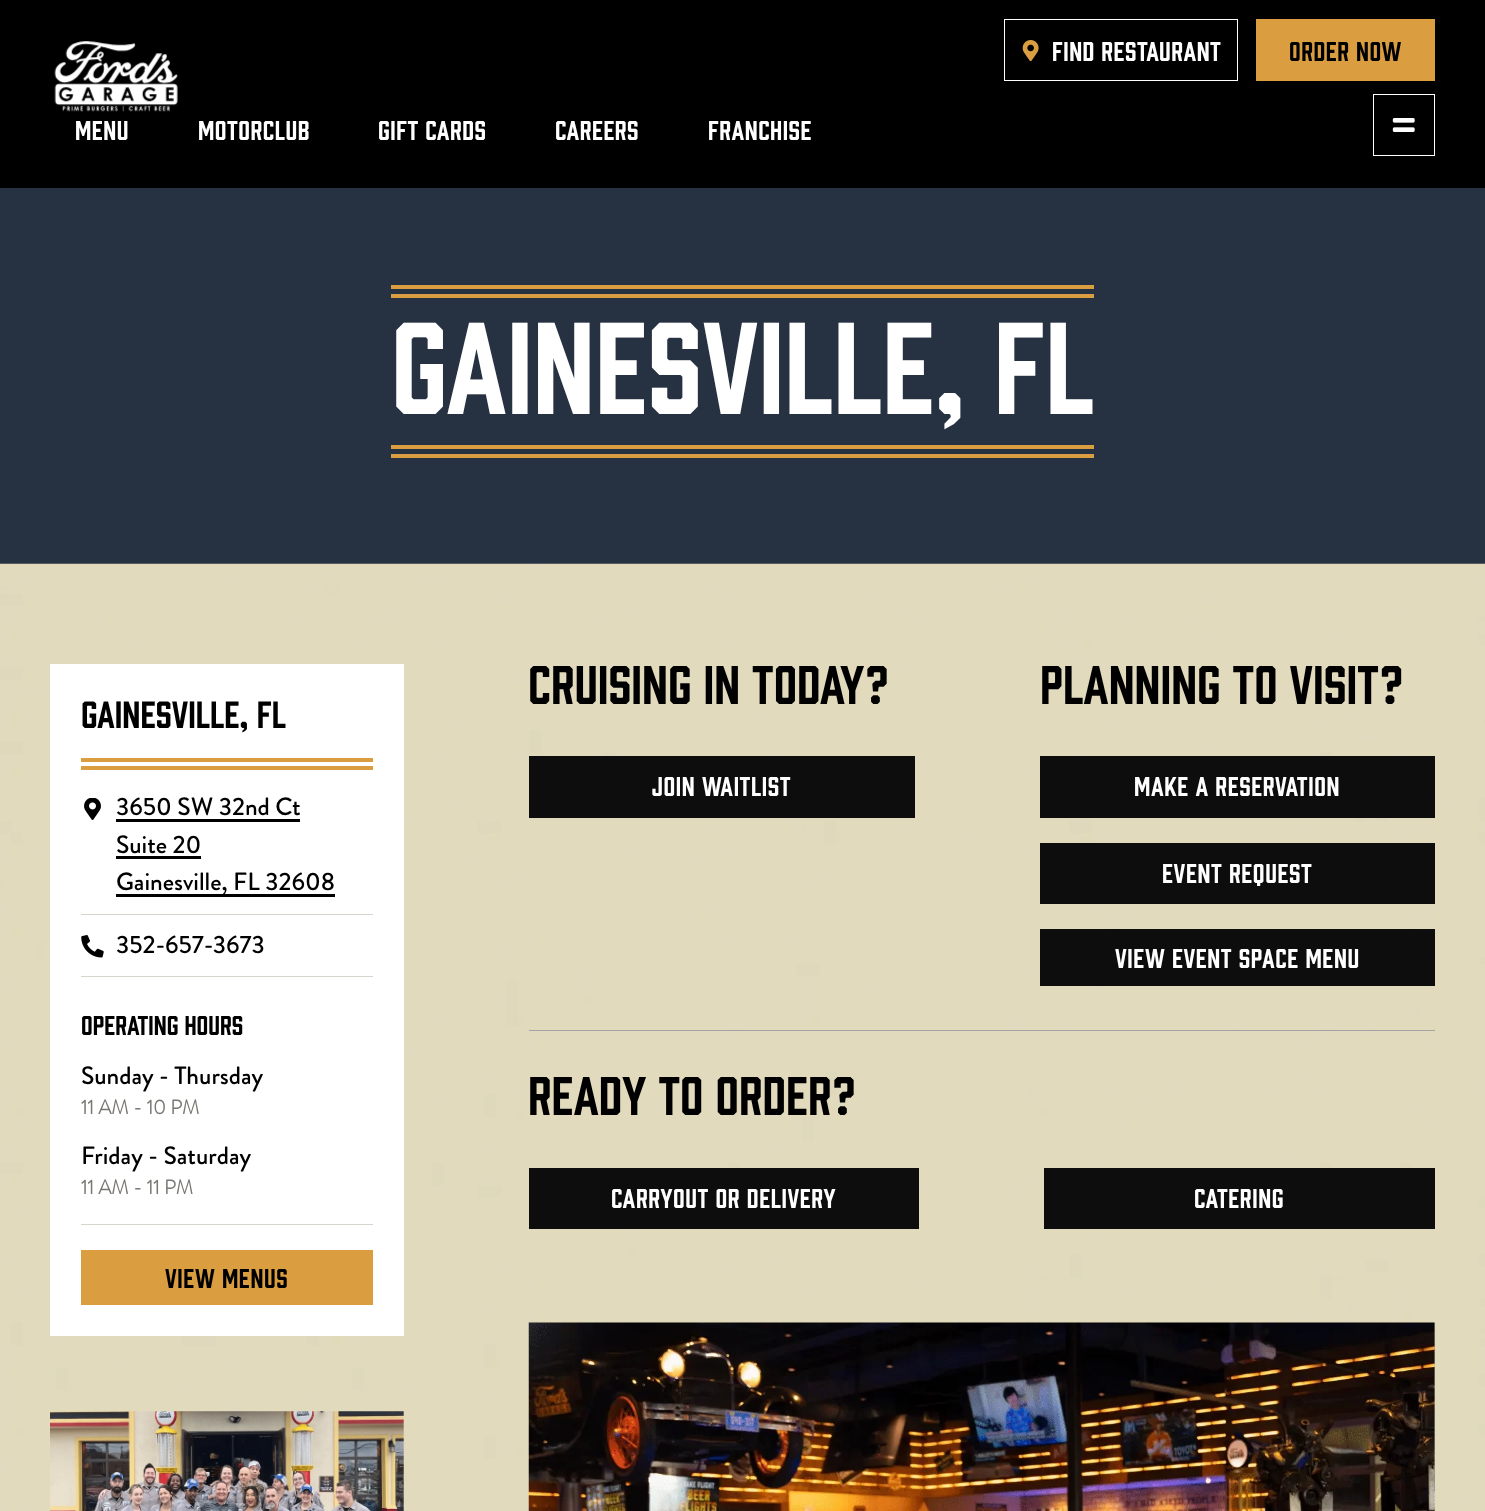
<?xml version="1.0" encoding="UTF-8"?>
<svg xmlns="http://www.w3.org/2000/svg" xmlns:xlink="http://www.w3.org/1999/xlink" width="1485" height="1511">
  <rect width="100%" height="100%" fill="#263141" />
  <rect width="1485" height="188" fill="#000000" />
  <rect x="1004.5" y="19.5" width="233" height="61" fill="none" stroke="#ffffff" />
  <image x="1022" y="40" width="17" height="21" xlink:href="image1.png" />
  <rect x="1256" y="19" width="179" height="62" fill="#da9e41" />
  <rect x="1373.5" y="94.5" width="61" height="61" fill="none" stroke="#ffffff" />
  <image x="1392" y="118" width="23" height="14" xlink:href="image2.png" />
  <image x="54" y="41" width="124" height="71" xlink:href="image3.png" />
  <rect x="391" y="285" width="703" height="4" fill="#da9e41" />
  <rect x="391" y="294" width="703" height="4" fill="#da9e41" />
  <rect x="391" y="445" width="703" height="4" fill="#da9e41" />
  <rect x="391" y="454" width="703" height="4" fill="#da9e41" />
  <image x="0" y="563" width="1485" height="948" xlink:href="image4.png" />
  <rect x="50" y="664" width="354" height="672" fill="#ffffff" />
  <rect x="81" y="758" width="292" height="4" fill="#da9e41" />
  <rect x="81" y="766" width="292" height="4" fill="#da9e41" />
  <image x="84" y="798" width="17" height="22" xlink:href="image5.png" />
  <rect x="116" y="819" width="184" height="3" fill="#000000" />
  <rect x="116" y="856" width="85" height="3" fill="#000000" />
  <rect x="116" y="894" width="219" height="3" fill="#000000" />
  <rect x="81" y="914" width="292" height="1" fill="#d7d4cc" />
  <image x="81" y="935" width="23" height="23" xlink:href="image6.png" />
  <rect x="81" y="976" width="292" height="1" fill="#d7d4cc" />
  <rect x="81" y="1224" width="292" height="1" fill="#d7d4cc" />
  <rect x="81" y="1250" width="292" height="55" fill="#da9e41" />
  <image x="50" y="1411" width="354" height="100" xlink:href="image7.png" />
  <rect x="529" y="756" width="386" height="62" fill="#0e0d0d" />
  <rect x="1040" y="756" width="395" height="62" fill="#0e0d0d" />
  <rect x="1040" y="843" width="395" height="61" fill="#0e0d0d" />
  <rect x="1040" y="929" width="395" height="57" fill="#0e0d0d" />
  <rect x="529" y="1030" width="906" height="1" fill="#a4a4a4" />
  <rect x="529" y="1168" width="390" height="61" fill="#0e0d0d" />
  <rect x="1044" y="1168" width="391" height="61" fill="#0e0d0d" />
  <image x="528" y="1322" width="907" height="189" xlink:href="image8.png" />
  <text x="1052" y="61" style="font-family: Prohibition; font-size: 25px; letter-spacing: 0.5px; fill: #ffffff">FIND RESTAURANT</text>
  <text x="1289" y="61" style="font-family: Prohibition; font-size: 25px; letter-spacing: 0.5px; fill: #000000">ORDER NOW</text>
  <text x="75" y="140" style="font-family: Prohibition; font-size: 25px; letter-spacing: 0.5px; fill: #ffffff">Menu</text>
  <text x="198" y="140" style="font-family: Prohibition; font-size: 25px; letter-spacing: 0.5px; fill: #ffffff">Motorclub</text>
  <text x="378" y="140" style="font-family: Prohibition; font-size: 25px; letter-spacing: 0.5px; fill: #ffffff">Gift Cards</text>
  <text x="555" y="140" style="font-family: Prohibition; font-size: 25px; letter-spacing: 0.5px; fill: #ffffff">Careers</text>
  <text x="708" y="140" style="font-family: Prohibition; font-size: 25px; letter-spacing: 0.5px; fill: #ffffff">Franchise</text>
  <text x="391" y="414" style="font-family: Prohibition; font-size: 120px; fill: #ffffff">Gainesville, FL</text>
  <text x="81" y="728" style="font-family: Prohibition; font-size: 35px; fill: #000000">GAINESVILLE, FL</text>
  <text x="116" y="815" style="font-family: Brandon Grotesque; font-size: 25px; font-weight: 500; fill: #000000">3650 SW 32nd Ct</text>
  <text x="116" y="853" style="font-family: Brandon Grotesque; font-size: 25px; font-weight: 500; fill: #000000">Suite 20</text>
  <text x="116" y="890" style="font-family: Brandon Grotesque; font-size: 25px; font-weight: 500; fill: #000000">Gainesville, FL 32608</text>
  <text x="116" y="953" style="font-family: Brandon Grotesque; font-size: 25px; font-weight: 500; fill: #000000">352-657-3673</text>
  <text x="81" y="1035" style="font-family: Prohibition; font-size: 25px; fill: #000000">OPERATING HOURS</text>
  <text x="81" y="1084" style="font-family: Brandon Grotesque; font-size: 25px; font-weight: 500; fill: #000000">Sunday - Thursday</text>
  <text x="81" y="1114" style="font-family: Brandon Grotesque; font-size: 20px; font-weight: bold; fill: #7a7874">11 AM - 10 PM</text>
  <text x="81" y="1164" style="font-family: Brandon Grotesque; font-size: 25px; font-weight: 500; fill: #000000">Friday - Saturday</text>
  <text x="81" y="1194" style="font-family: Brandon Grotesque; font-size: 20px; font-weight: bold; fill: #7a7874">11 AM - 11 PM</text>
  <text x="165" y="1288" style="font-family: Prohibition; font-size: 25px; letter-spacing: 0.6px; fill: #000000">VIEW MENUS</text>
  <text x="528" y="704" style="font-family: Prohibition; font-size: 50px; fill: #000000">cruising in today?</text>
  <text x="652" y="796" style="font-family: Prohibition; font-size: 25px; letter-spacing: 0.6px; fill: #ffffff">join waitlist</text>
  <text x="1040" y="704" style="font-family: Prohibition; font-size: 50px; fill: #000000">planning to visit?</text>
  <text x="1134" y="796" style="font-family: Prohibition; font-size: 25px; letter-spacing: 0.6px; fill: #ffffff">make a reservation</text>
  <text x="1162" y="883" style="font-family: Prohibition; font-size: 25px; letter-spacing: 0.6px; fill: #ffffff">Event Request</text>
  <text x="1115" y="968" style="font-family: Prohibition; font-size: 25px; letter-spacing: 0.6px; fill: #ffffff">VIEW EVENT SPACE MENU</text>
  <text x="528" y="1115" style="font-family: Prohibition; font-size: 50px; fill: #000000">Ready TO ORDER?</text>
  <text x="611" y="1208" style="font-family: Prohibition; font-size: 25px; letter-spacing: 0.6px; fill: #ffffff">Carryout or Delivery</text>
  <text x="1194" y="1208" style="font-family: Prohibition; font-size: 25px; letter-spacing: 0.6px; fill: #ffffff">CATERING</text>
</svg>
